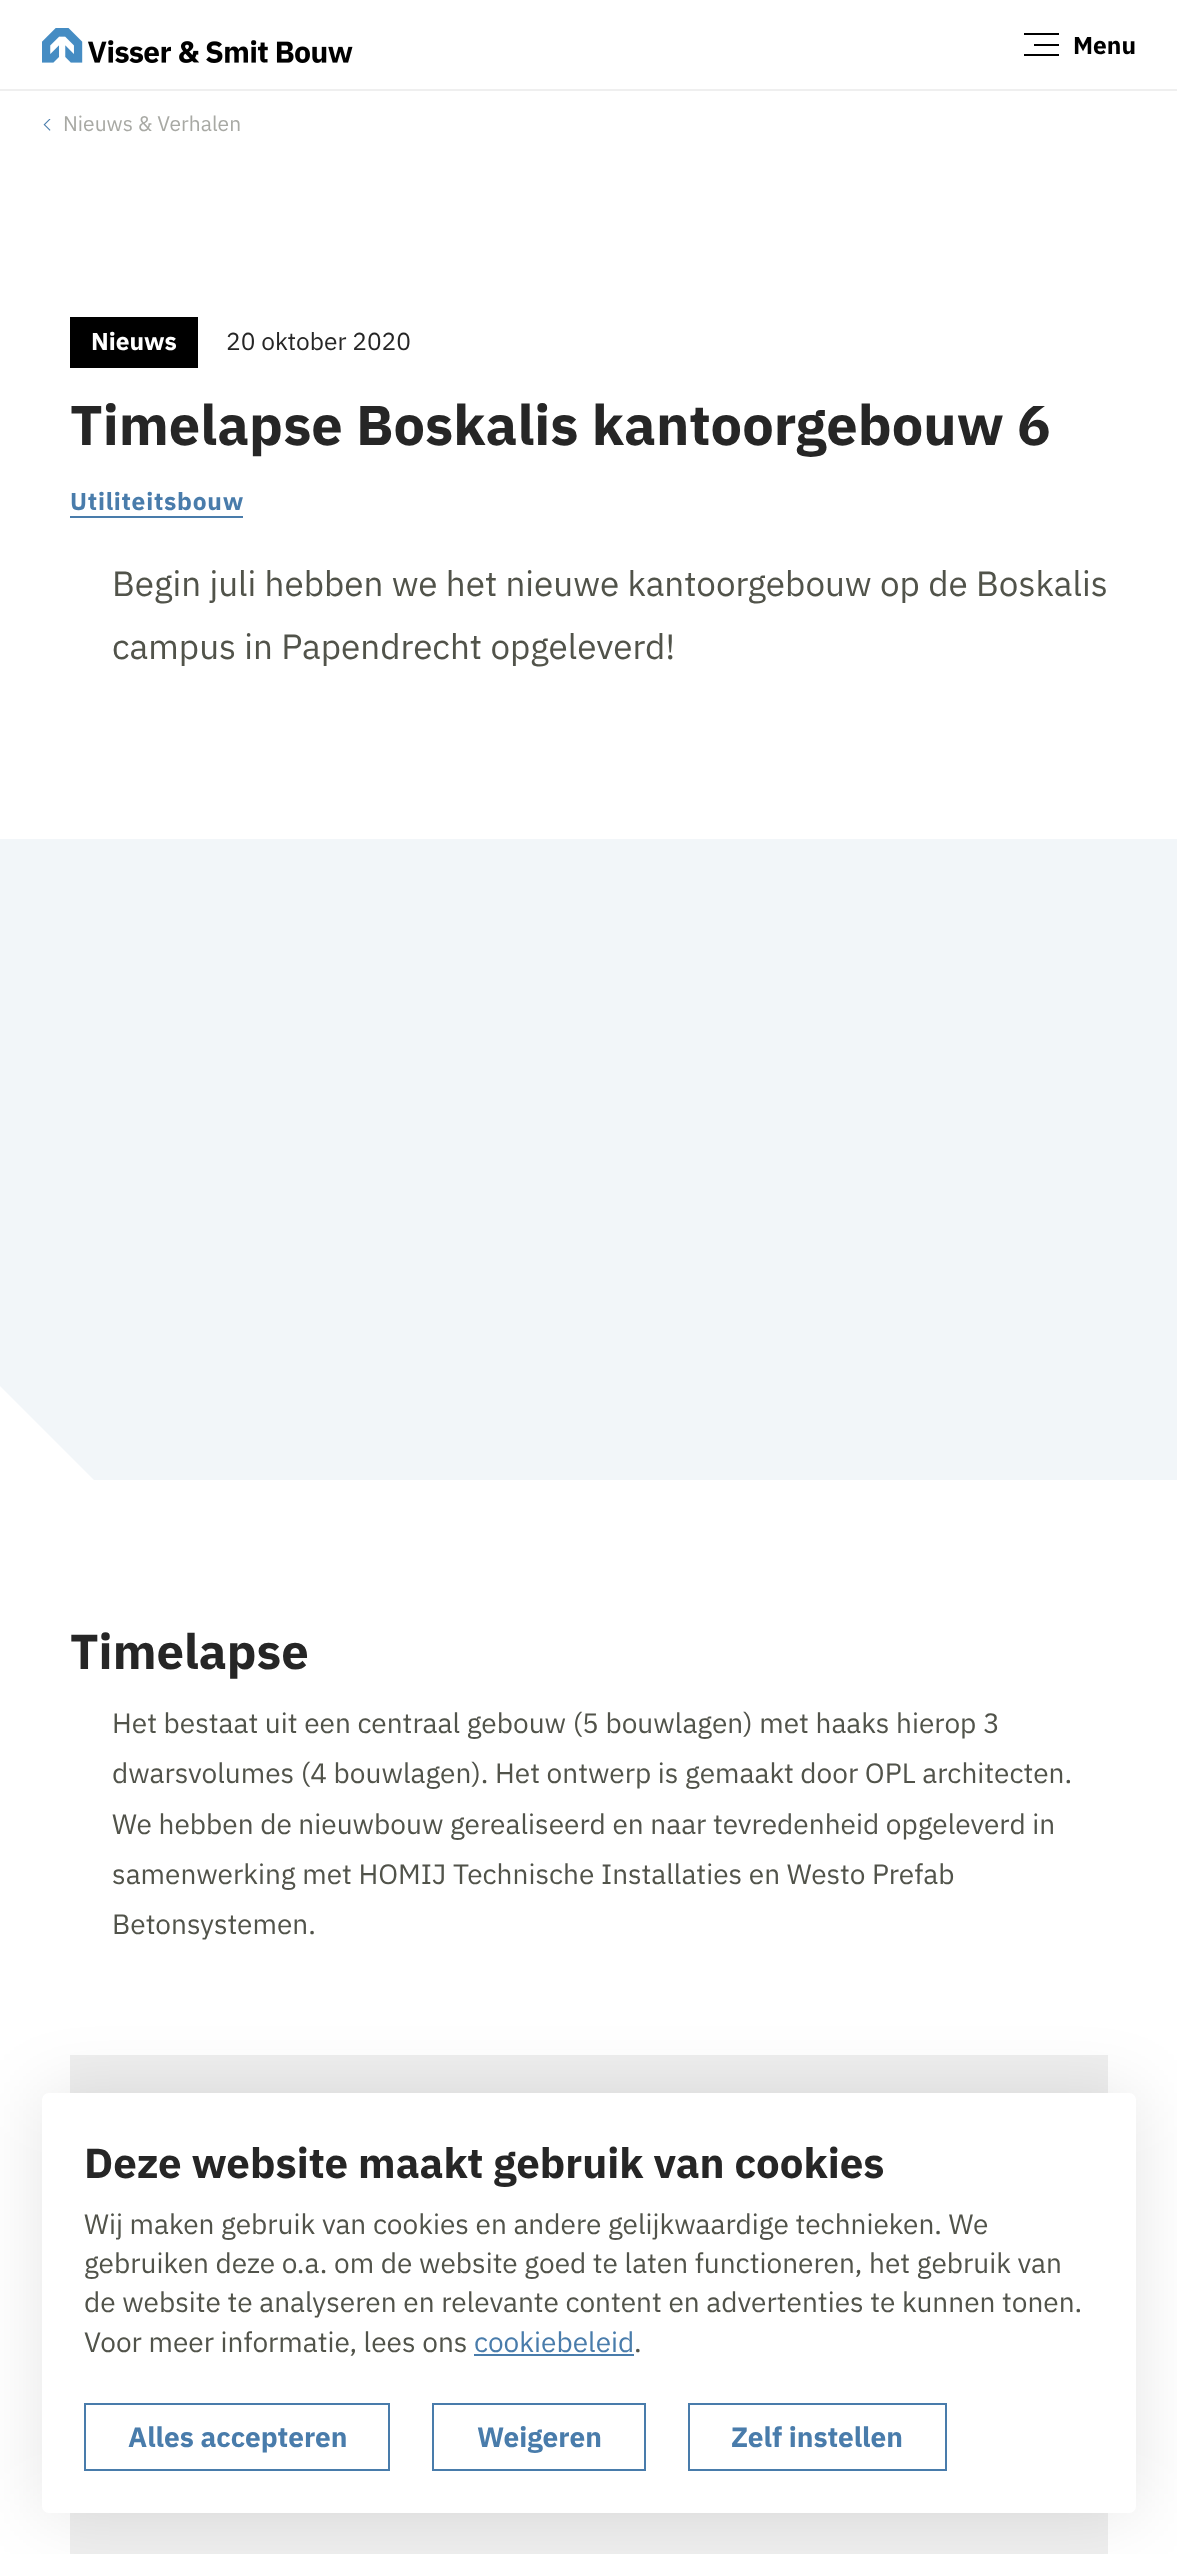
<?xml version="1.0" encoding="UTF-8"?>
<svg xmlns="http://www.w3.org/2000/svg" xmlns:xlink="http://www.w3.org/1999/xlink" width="1177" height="2554">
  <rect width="100%" height="100%" fill="#ffffff" />
  <rect y="89" width="1177" height="2" fill="#efefef" />
  <image x="42" y="28" width="311" height="35" xlink:href="image1.png" />
  <rect x="1024" y="33" width="35" height="2" fill="#000000" />
  <rect x="1034" y="44" width="25" height="2" fill="#000000" />
  <rect x="1024" y="54" width="35" height="2" fill="#000000" />
  <image x="43" y="119" width="8" height="12" xlink:href="image2.png" />
  <rect x="70" y="317" width="128" height="51" fill="#000000" />
  <rect x="70" y="516" width="173" height="2" fill="#497cab" />
  <path d="M 0 839 v 547 l 94 94 h 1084 v -641 z" fill="#f2f6f9" />
  <rect x="70" y="2055" width="1038" height="499" fill="#efefef" />
  <rect x="42" y="2093" width="1094" height="420" rx="7" fill="#000000" fill-opacity="0.1" filter="blur(35px)" />
  <rect x="42" y="2093" width="1094" height="420" rx="7" fill="#ffffff" />
  <rect x="474" y="2354" width="160" height="2" fill="#497cab" />
  <rect x="85" y="2404" width="304" height="66" fill="none" stroke="#497cab" stroke-width="2" />
  <rect x="433" y="2404" width="212" height="66" fill="none" stroke="#497cab" stroke-width="2" />
  <rect x="689" y="2404" width="257" height="66" fill="none" stroke="#497cab" stroke-width="2" />
  <text x="1073" y="54" style="font-family: IBM Plex Sans; font-size: 24.5px; font-weight: bold; fill: #000000">Menu</text>
  <text x="63" y="131" style="font-family: IBM Plex Sans; font-size: 21px; fill: #a8a9a4">Nieuws &amp; Verhalen</text>
  <text x="91" y="350" style="font-family: IBM Plex Sans; font-size: 24.5px; font-weight: bold; fill: #ffffff">Nieuws</text>
  <text x="226" y="350" style="font-family: IBM Plex Sans; font-size: 24.5px; fill: #262626">20 oktober 2020</text>
  <text x="70" y="445" style="font-family: IBM Plex Sans; font-size: 56px; font-weight: bold; fill: #262626">Timelapse Boskalis kantoorgebouw 6</text>
  <text x="70" y="510" style="font-family: IBM Plex Sans; font-size: 24.5px; font-weight: bold; letter-spacing: 0.75px; fill: #497cab">Utiliteitsbouw</text>
  <text x="112" y="596" style="font-family: IBM Plex Sans; font-size: 35px; fill: #51534a">Begin juli hebben we het nieuwe kantoorgebouw op de Boskalis</text>
  <text x="112" y="659" style="font-family: IBM Plex Sans; font-size: 35px; fill: #51534a">campus in Papendrecht opgeleverd!</text>
  <text x="70" y="1669" style="font-family: IBM Plex Sans; font-size: 49px; font-weight: bold; fill: #262626">Timelapse</text>
  <text x="112" y="1733" style="font-family: IBM Plex Sans; font-size: 28px; fill: #51534a">Het bestaat uit een centraal gebouw (5 bouwlagen) met haaks hierop 3</text>
  <text x="112" y="1783" style="font-family: IBM Plex Sans; font-size: 28px; fill: #51534a">dwarsvolumes (4 bouwlagen). Het ontwerp is gemaakt door OPL architecten.</text>
  <text x="112" y="1834" style="font-family: IBM Plex Sans; font-size: 28px; fill: #51534a">We hebben de nieuwbouw gerealiseerd en naar tevredenheid opgeleverd in</text>
  <text x="112" y="1884" style="font-family: IBM Plex Sans; font-size: 28px; fill: #51534a">samenwerking met HOMIJ Technische Installaties en Westo Prefab</text>
  <text x="112" y="1934" style="font-family: IBM Plex Sans; font-size: 28px; fill: #51534a">Betonsystemen.</text>
  <text x="84" y="2178" style="font-family: IBM Plex Sans; font-size: 42px; font-weight: bold; fill: #262626">Deze website maakt gebruik van cookies</text>
  <text x="84" y="2234" style="font-family: IBM Plex Sans; font-size: 28px; fill: #51534a">Wij maken gebruik van cookies en andere gelijkwaardige technieken. We</text>
  <text x="84" y="2273" style="font-family: IBM Plex Sans; font-size: 28px; fill: #51534a">gebruiken deze o.a. om de website goed te laten functioneren, het gebruik van</text>
  <text x="84" y="2312" style="font-family: IBM Plex Sans; font-size: 28px; fill: #51534a">de website te analyseren en relevante content en advertenties te kunnen tonen.</text>
  <text x="84" y="2352" style="font-family: IBM Plex Sans; font-size: 28px; fill: #51534a">Voor meer informatie, lees ons</text>
  <text x="474" y="2352" style="font-family: IBM Plex Sans; font-size: 28px; fill: #497cab">cookiebeleid</text>
  <text x="634" y="2352" style="font-family: IBM Plex Sans; font-size: 28px; fill: #51534a">.</text>
  <text x="128" y="2447" style="font-family: IBM Plex Sans; font-size: 28px; font-weight: bold; fill: #497cab">Alles accepteren</text>
  <text x="477" y="2447" style="font-family: IBM Plex Sans; font-size: 28px; font-weight: bold; fill: #497cab">Weigeren</text>
  <text x="731" y="2447" style="font-family: IBM Plex Sans; font-size: 28px; font-weight: bold; fill: #497cab">Zelf instellen</text>
</svg>
